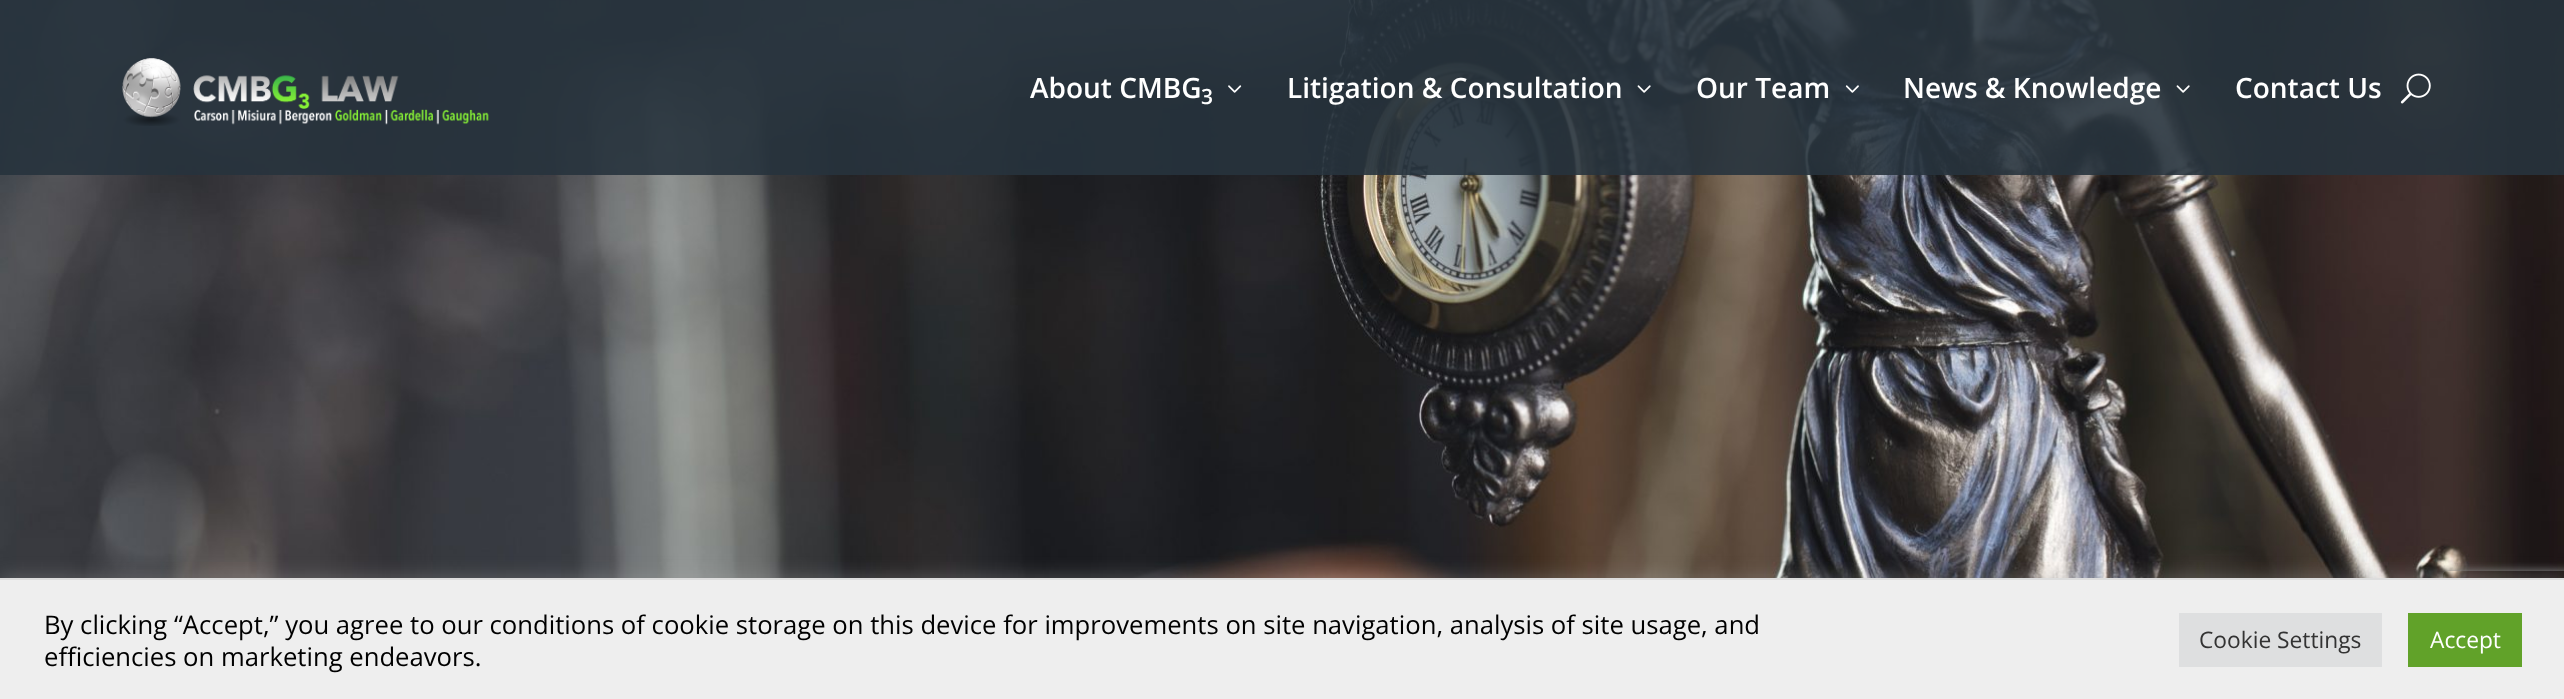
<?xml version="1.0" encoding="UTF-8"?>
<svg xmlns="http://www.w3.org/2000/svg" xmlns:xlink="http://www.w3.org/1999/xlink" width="2564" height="699">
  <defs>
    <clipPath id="clip1"><path d="M 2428 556 h 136 v 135 h -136 z m 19 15 h 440 c 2 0 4 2 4 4 v 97 c 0 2 -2 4 -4 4 h -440 c -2 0 -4 -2 -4 -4 v -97 c 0 -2 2 -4 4 -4 z" clip-rule="evenodd" /></clipPath>
  </defs>
  <rect width="100%" height="100%" fill="#ffffff" />
  <image x="0" y="0" width="2564" height="578" xlink:href="image1.png" />
  <rect width="2564" height="175" fill="#27333d" fill-opacity="0.9" />
  <image x="122" y="58" width="367" height="68" xlink:href="image2.png" />
  <image x="1228" y="85" width="14" height="8" xlink:href="image3.png" />
  <image x="1637" y="85" width="14" height="8" xlink:href="image4.png" />
  <image x="1845" y="85" width="14" height="8" xlink:href="image5.png" />
  <image x="2176" y="85" width="14" height="8" xlink:href="image6.png" />
  <image x="2400" y="73" width="31" height="31" xlink:href="image7.png" />
  <g clip-path="url(#clip1)">
    <rect x="2443" y="571" width="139" height="105" rx="4" fill="#808080" filter="blur(4.5px)" />
  </g>
  <rect y="576" width="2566" height="122" fill="#acabab" fill-opacity="0.3" filter="blur(9px)" />
  <rect y="580" width="2564" height="119" fill="#eeeeee" />
  <rect y="578" width="2564" height="2" fill="#dddddd" />
  <rect x="2179" y="613" width="203" height="54" fill="#dedfe0" />
  <rect x="2408" y="613" width="114" height="54" fill="#61a229" />
  <text x="1030" y="98" style="font-family: Open Sans; font-size: 28px; font-weight: 600; fill: #ffffff">About CMBG</text>
  <text x="1201" y="104" style="font-family: Open Sans; font-size: 21px; font-weight: 600; fill: #ffffff">3</text>
  <text x="1287" y="98" style="font-family: Open Sans; font-size: 28px; font-weight: 600; fill: #ffffff">Litigation &amp; Consultation</text>
  <text x="1696" y="98" style="font-family: Open Sans; font-size: 28px; font-weight: 600; fill: #ffffff">Our Team</text>
  <text x="1903" y="98" style="font-family: Open Sans; font-size: 28px; font-weight: 600; fill: #ffffff">News &amp; Knowledge</text>
  <text x="2235" y="98" style="font-family: Open Sans; font-size: 28px; font-weight: 600; fill: #ffffff">Contact Us</text>
  <text x="44" y="634" style="font-family: Open Sans; font-size: 25.67px; fill: #000000">By clicking “Accept,” you agree to our conditions of cookie storage on this device for improvements on site navigation, analysis of site usage, and</text>
  <text x="44" y="666" style="font-family: Open Sans; font-size: 25.67px; fill: #000000">efficiencies on marketing endeavors.</text>
  <text x="2199" y="648" style="font-family: Open Sans; font-size: 22.75px; fill: #333333">Cookie Settings</text>
  <text x="2430" y="648" style="font-family: Open Sans; font-size: 22.75px; fill: #ffffff">Accept</text>
</svg>
